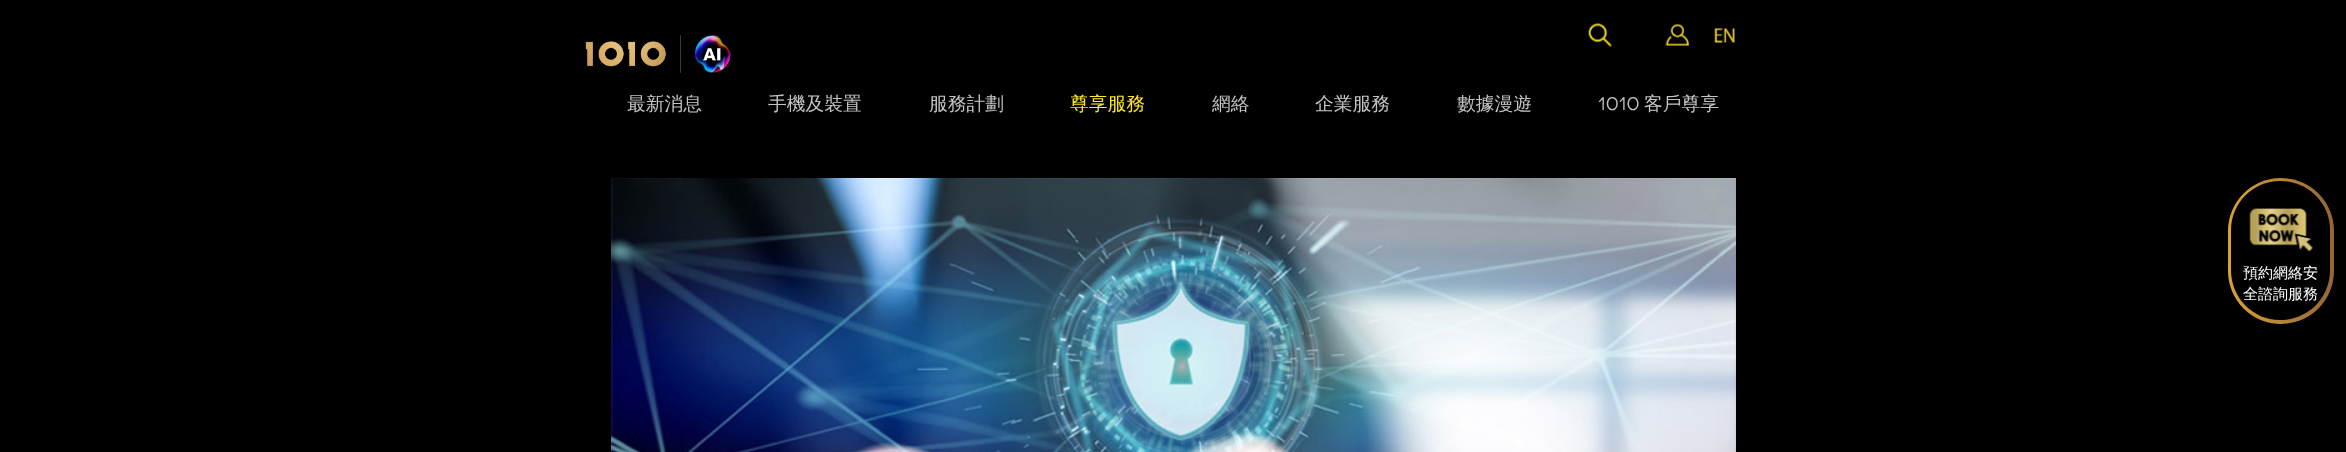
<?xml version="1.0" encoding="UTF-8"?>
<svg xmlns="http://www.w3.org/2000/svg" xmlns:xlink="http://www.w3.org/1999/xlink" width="2346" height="452">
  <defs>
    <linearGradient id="g1" gradientUnits="userSpaceOnUse" x1="2228" y1="251" x2="2334" y2="251"><stop offset="0" stop-color="#dba237" /><stop offset="1" stop-color="#936536" /></linearGradient>
  </defs>
  <rect width="100%" height="100%" fill="#000000" />
  <image x="585" y="35" width="146" height="38" xlink:href="image1.png" />
  <image x="1588" y="23" width="24" height="24" xlink:href="image2.png" />
  <image x="1665" y="24" width="24" height="22" xlink:href="image3.png" />
  <image x="1714" y="28" width="21" height="15" xlink:href="image4.png" />
  <image x="611" y="178" width="1125" height="274" xlink:href="image5.png" />
  <rect x="2228" y="178" width="106" height="146" rx="53" fill="url(#g1)" />
  <path d="M 2280 181 c -27 0 -49 22 -49 49 v 40 c 0 28 22 50 49 50 c 28 0 50 -22 50 -50 v -40 c 0 -27 -22 -49 -50 -49 z" fill="#000000" />
  <image x="2249" y="208" width="64" height="44" xlink:href="image6.png" />
  <text x="627" y="110" style="font-family: WenQuanYi Zen Hei; font-size: 18.75px; font-weight: 500; fill: #c4c4c4">最新消息</text>
  <text x="768" y="110" style="font-family: WenQuanYi Zen Hei; font-size: 18.75px; font-weight: 500; fill: #c4c4c4">手機及裝置</text>
  <text x="929" y="110" style="font-family: WenQuanYi Zen Hei; font-size: 18.75px; font-weight: 500; fill: #c4c4c4">服務計劃</text>
  <text x="1070" y="110" style="font-family: WenQuanYi Zen Hei; font-size: 18.75px; font-weight: 500; fill: #ffe826">尊享服務</text>
  <text x="1212" y="110" style="font-family: WenQuanYi Zen Hei; font-size: 18.75px; font-weight: 500; fill: #c4c4c4">網絡</text>
  <text x="1315" y="110" style="font-family: WenQuanYi Zen Hei; font-size: 18.75px; font-weight: 500; fill: #c4c4c4">企業服務</text>
  <text x="1457" y="110" style="font-family: WenQuanYi Zen Hei; font-size: 18.75px; font-weight: 500; fill: #c4c4c4">數據漫遊</text>
  <text x="1598" y="110" style="font-family: Didact Gothic; font-size: 18.75px; fill: #c4c4c4">1O1O</text>
  <text x="1644" y="110" style="font-family: WenQuanYi Zen Hei; font-size: 18.75px; font-weight: 500; fill: #c4c4c4">客戶尊享</text>
  <text x="2243" y="278" style="font-family: WenQuanYi Zen Hei; font-size: 15px; font-weight: 500; fill: #ffffff">預約網絡安</text>
  <text x="2243" y="299" style="font-family: WenQuanYi Zen Hei; font-size: 15px; font-weight: 500; fill: #ffffff">全諮詢服務</text>
</svg>
